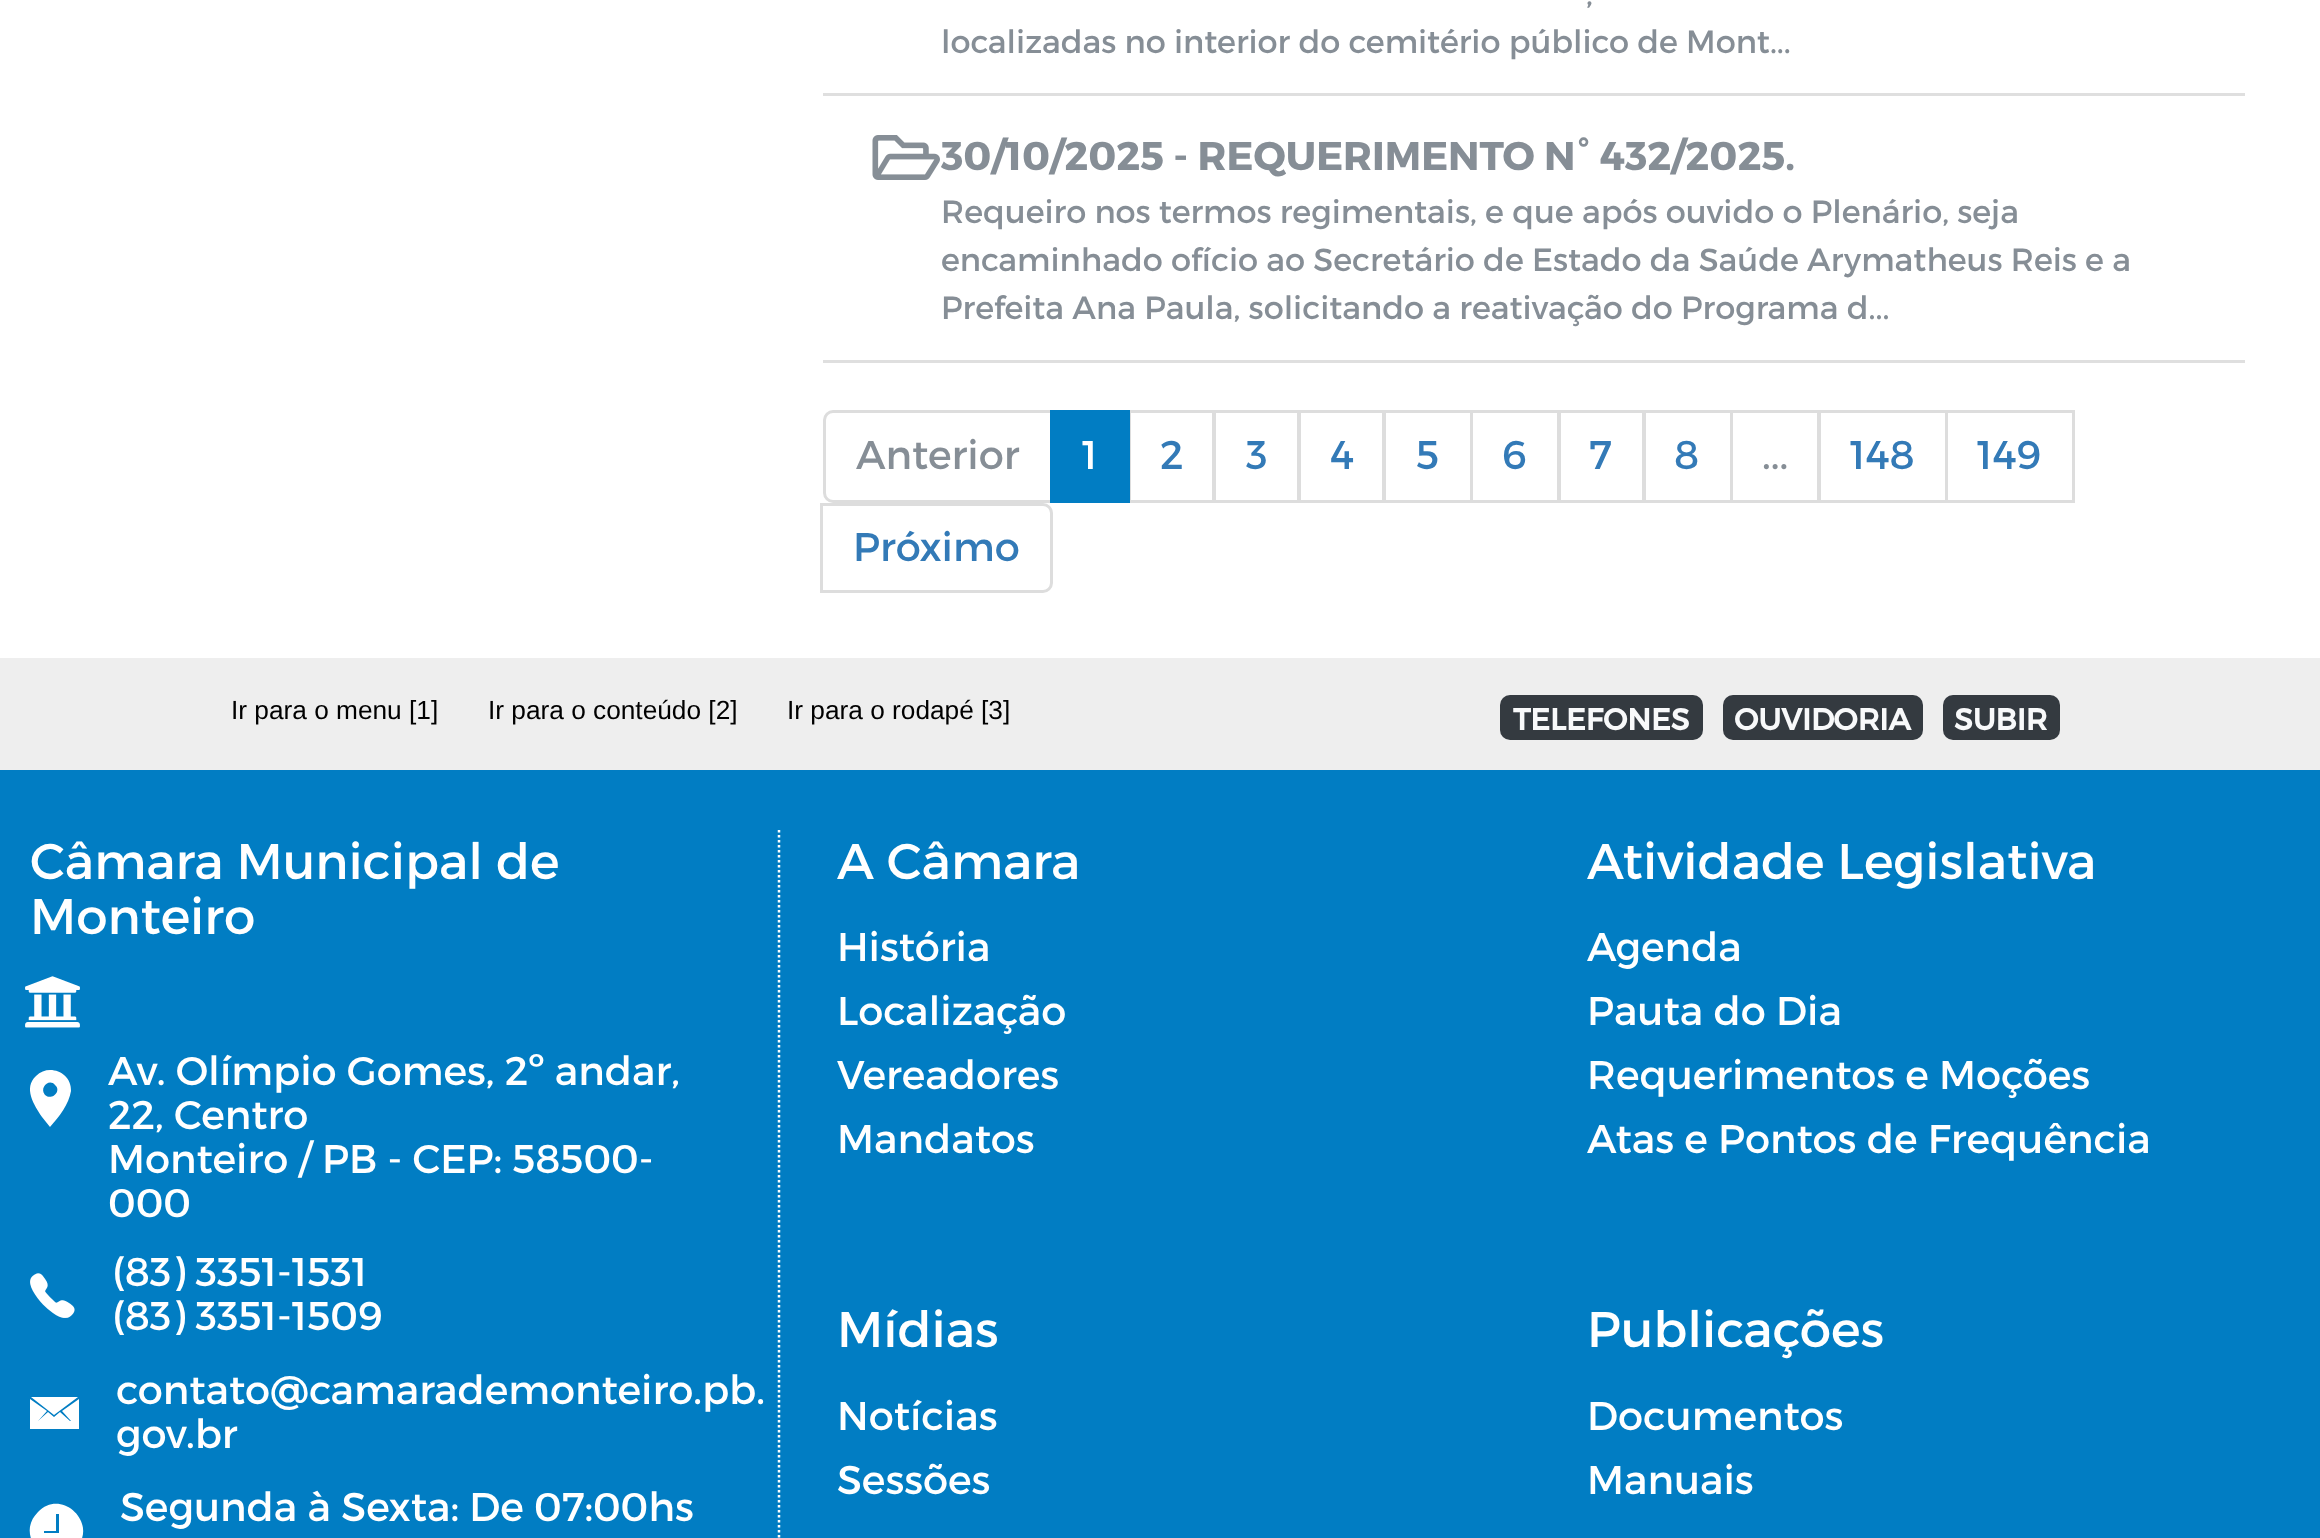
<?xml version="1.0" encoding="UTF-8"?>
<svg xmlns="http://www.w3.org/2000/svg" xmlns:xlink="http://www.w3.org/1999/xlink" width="2320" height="1538">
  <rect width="100%" height="100%" fill="#ffffff" />
  <rect x="823" y="93" width="1422" height="3" fill="#dfdfdf" />
  <rect x="823" y="360" width="1422" height="3" fill="#dfdfdf" />
  <image x="872" y="135" width="68" height="45" xlink:href="image1.png" />
  <path d="M 833 411.5 h 218.5 v 90 h -218.5 c -4.5 0 -8.5 -4 -8.5 -8.5 v -73 c 0 -4.5 4 -8.5 8.5 -8.5 z" fill="none" stroke="#dddddd" stroke-width="3" />
  <rect x="1129.5" y="411.5" width="84" height="90" fill="none" stroke="#dddddd" stroke-width="3" />
  <rect x="1050" y="410" width="80" height="93" fill="#017dc3" />
  <rect x="1214.5" y="411.5" width="84" height="90" fill="none" stroke="#dddddd" stroke-width="3" />
  <rect x="1299.5" y="411.5" width="84" height="90" fill="none" stroke="#dddddd" stroke-width="3" />
  <rect x="1384.5" y="411.5" width="87" height="90" fill="none" stroke="#dddddd" stroke-width="3" />
  <rect x="1471.5" y="411.5" width="87" height="90" fill="none" stroke="#dddddd" stroke-width="3" />
  <rect x="1559.5" y="411.5" width="84" height="90" fill="none" stroke="#dddddd" stroke-width="3" />
  <rect x="1644.5" y="411.5" width="87" height="90" fill="none" stroke="#dddddd" stroke-width="3" />
  <rect x="1731.5" y="411.5" width="87" height="90" fill="none" stroke="#dddddd" stroke-width="3" />
  <rect x="1819.5" y="411.5" width="127" height="90" fill="none" stroke="#dddddd" stroke-width="3" />
  <rect x="1946.5" y="411.5" width="127" height="90" fill="none" stroke="#dddddd" stroke-width="3" />
  <path d="M 821.5 504.5 h 221.5 c 4.5 0 8.5 4 8.5 8.5 v 70 c 0 4.5 -4 8.5 -8.5 8.5 h -221.5 z" fill="none" stroke="#dddddd" stroke-width="3" />
  <rect y="658" width="2320" height="112" fill="#eeeeee" />
  <rect x="1500" y="695" width="203" height="45" rx="10" fill="#343a40" />
  <rect x="1723" y="695" width="200" height="45" rx="10" fill="#343a40" />
  <rect x="1943" y="695" width="117" height="45" rx="10" fill="#343a40" />
  <rect y="770" width="2320" height="768" fill="#017dc3" />
  <path d="M 779 830 v 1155" fill="none" stroke="#ffffff" stroke-width="2.5" stroke-dasharray="2.5 2.5" />
  <image x="25" y="976" width="55" height="52" xlink:href="image2.png" />
  <path d="M 36 1076 c 13 -13 36 -3 35 15 c -2 13 -12 26 -21 36 l -8 -10 c -8 -12 -19 -29 -6 -41 z m 9 19 c 7 6 17 -4 10 -10 c -6 -7 -16 3 -10 10 z" fill="#ffffff" />
  <image x="30" y="1273" width="45" height="45" xlink:href="image3.png" />
  <path d="M 79 1429 h -49 v -30 l 17 12 l -9 10 l 10 -9 l 6 5 l 6 -5 l 10 9 h 1 l -9 -10 l 17 -12 z m -1 -32 l -24 18 l -23 -18 z" fill="#ffffff" />
  <path d="M 38 1512 c 24 -25 62 13 37 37 c -25 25 -62 -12 -37 -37 z m 21 21 v -19 h -3 v 17 h -12 v 2 z" fill="#ffffff" />
  <text x="1586" y="5" style="font-family: Montserrat; font-size: 32px; fill: #868e96">,</text>
  <text x="941" y="53" style="font-family: Montserrat; font-size: 32px; fill: #868e96">localizadas no interior do cemitério público de Mont...</text>
  <text x="941" y="170" style="font-family: Montserrat; font-size: 40px; font-weight: bold; fill: #868e96">30/10/2025 - REQUERIMENTO N° 432/2025.</text>
  <text x="941" y="223" style="font-family: Montserrat; font-size: 32px; fill: #868e96">Requeiro nos termos regimentais, e que após ouvido o Plenário, seja</text>
  <text x="941" y="271" style="font-family: Montserrat; font-size: 32px; fill: #868e96">encaminhado ofício ao Secretário de Estado da Saúde Arymatheus Reis e a</text>
  <text x="941" y="319" style="font-family: Montserrat; font-size: 32px; fill: #868e96">Prefeita Ana Paula, solicitando a reativação do Programa d...</text>
  <text x="856" y="469" style="font-family: Montserrat; font-size: 40px; fill: #868e96">Anterior</text>
  <text x="1082" y="469" style="font-family: Montserrat; font-size: 40px; fill: #ffffff">1</text>
  <text x="1160" y="469" style="font-family: Montserrat; font-size: 40px; fill: #337ab7">2</text>
  <text x="1246" y="469" style="font-family: Montserrat; font-size: 40px; fill: #337ab7">3</text>
  <text x="1330" y="469" style="font-family: Montserrat; font-size: 40px; fill: #337ab7">4</text>
  <text x="1416" y="469" style="font-family: Montserrat; font-size: 40px; fill: #337ab7">5</text>
  <text x="1502" y="469" style="font-family: Montserrat; font-size: 40px; fill: #337ab7">6</text>
  <text x="1589" y="469" style="font-family: Montserrat; font-size: 40px; fill: #337ab7">7</text>
  <text x="1674" y="469" style="font-family: Montserrat; font-size: 40px; fill: #337ab7">8</text>
  <text x="1762" y="469" style="font-family: Montserrat; font-size: 40px; fill: #868e96">...</text>
  <text x="1850" y="469" style="font-family: Montserrat; font-size: 40px; fill: #337ab7">148</text>
  <text x="1977" y="469" style="font-family: Montserrat; font-size: 40px; fill: #337ab7">149</text>
  <text x="853" y="561" style="font-family: Montserrat; font-size: 40px; fill: #337ab7">Próximo</text>
  <text x="231" y="719" style="font-family: Liberation Sans; font-size: 26.25px; fill: #000000">Ir para o menu [1]</text>
  <text x="488" y="719" style="font-family: Liberation Sans; font-size: 26.25px; fill: #000000">Ir para o conteúdo [2]</text>
  <text x="787" y="719" style="font-family: Liberation Sans; font-size: 26.25px; fill: #000000">Ir para o rodapé [3]</text>
  <text x="1513" y="730" style="font-family: 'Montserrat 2'; font-size: 30px; font-weight: bold; fill: #f8f9fa">TELEFONES</text>
  <text x="1734" y="730" style="font-family: 'Montserrat 2'; font-size: 30px; font-weight: bold; fill: #f8f9fa">OUVIDORIA</text>
  <text x="1954" y="730" style="font-family: 'Montserrat 2'; font-size: 30px; font-weight: bold; fill: #f8f9fa">SUBIR</text>
  <text x="30" y="879" style="font-family: Montserrat; font-size: 50px; fill: #ffffff">Câmara Municipal de</text>
  <text x="30" y="934" style="font-family: Montserrat; font-size: 50px; fill: #ffffff">Monteiro</text>
  <text x="108" y="1085" style="font-family: Montserrat; font-size: 40px; fill: #ffffff">Av. Olímpio Gomes, 2º andar,</text>
  <text x="108" y="1129" style="font-family: Montserrat; font-size: 40px; fill: #ffffff">22, Centro</text>
  <text x="108" y="1173" style="font-family: Montserrat; font-size: 40px; fill: #ffffff">Monteiro / PB - CEP: 58500-</text>
  <text x="108" y="1217" style="font-family: Montserrat; font-size: 40px; fill: #ffffff">000</text>
  <text x="112" y="1286" style="font-family: Montserrat; font-size: 40px; fill: #ffffff">(83) 3351-1531</text>
  <text x="112" y="1330" style="font-family: Montserrat; font-size: 40px; fill: #ffffff">(83) 3351-1509</text>
  <text x="116" y="1404" style="font-family: Montserrat; font-size: 40px; fill: #ffffff">contato@camarademonteiro.pb.</text>
  <text x="116" y="1448" style="font-family: Montserrat; font-size: 40px; fill: #ffffff">gov.br</text>
  <text x="120" y="1521" style="font-family: Montserrat; font-size: 40px; fill: #ffffff">Segunda à Sexta: De 07:00hs</text>
  <text x="837" y="879" style="font-family: Montserrat; font-size: 50px; fill: #ffffff">A Câmara</text>
  <text x="837" y="961" style="font-family: Montserrat; font-size: 40px; fill: #ffffff">História</text>
  <text x="837" y="1025" style="font-family: Montserrat; font-size: 40px; fill: #ffffff">Localização</text>
  <text x="837" y="1089" style="font-family: Montserrat; font-size: 40px; fill: #ffffff">Vereadores</text>
  <text x="837" y="1153" style="font-family: Montserrat; font-size: 40px; fill: #ffffff">Mandatos</text>
  <text x="1587" y="879" style="font-family: Montserrat; font-size: 50px; fill: #ffffff">Atividade Legislativa</text>
  <text x="1587" y="961" style="font-family: Montserrat; font-size: 40px; fill: #ffffff">Agenda</text>
  <text x="1587" y="1025" style="font-family: Montserrat; font-size: 40px; fill: #ffffff">Pauta do Dia</text>
  <text x="1587" y="1089" style="font-family: Montserrat; font-size: 40px; fill: #ffffff">Requerimentos e Moções</text>
  <text x="1587" y="1153" style="font-family: Montserrat; font-size: 40px; fill: #ffffff">Atas e Pontos de Frequência</text>
  <text x="837" y="1347" style="font-family: Montserrat; font-size: 50px; fill: #ffffff">Mídias</text>
  <text x="837" y="1430" style="font-family: Montserrat; font-size: 40px; fill: #ffffff">Notícias</text>
  <text x="837" y="1494" style="font-family: Montserrat; font-size: 40px; fill: #ffffff">Sessões</text>
  <text x="1587" y="1347" style="font-family: Montserrat; font-size: 50px; fill: #ffffff">Publicações</text>
  <text x="1587" y="1430" style="font-family: Montserrat; font-size: 40px; fill: #ffffff">Documentos</text>
  <text x="1587" y="1494" style="font-family: Montserrat; font-size: 40px; fill: #ffffff">Manuais</text>
</svg>
